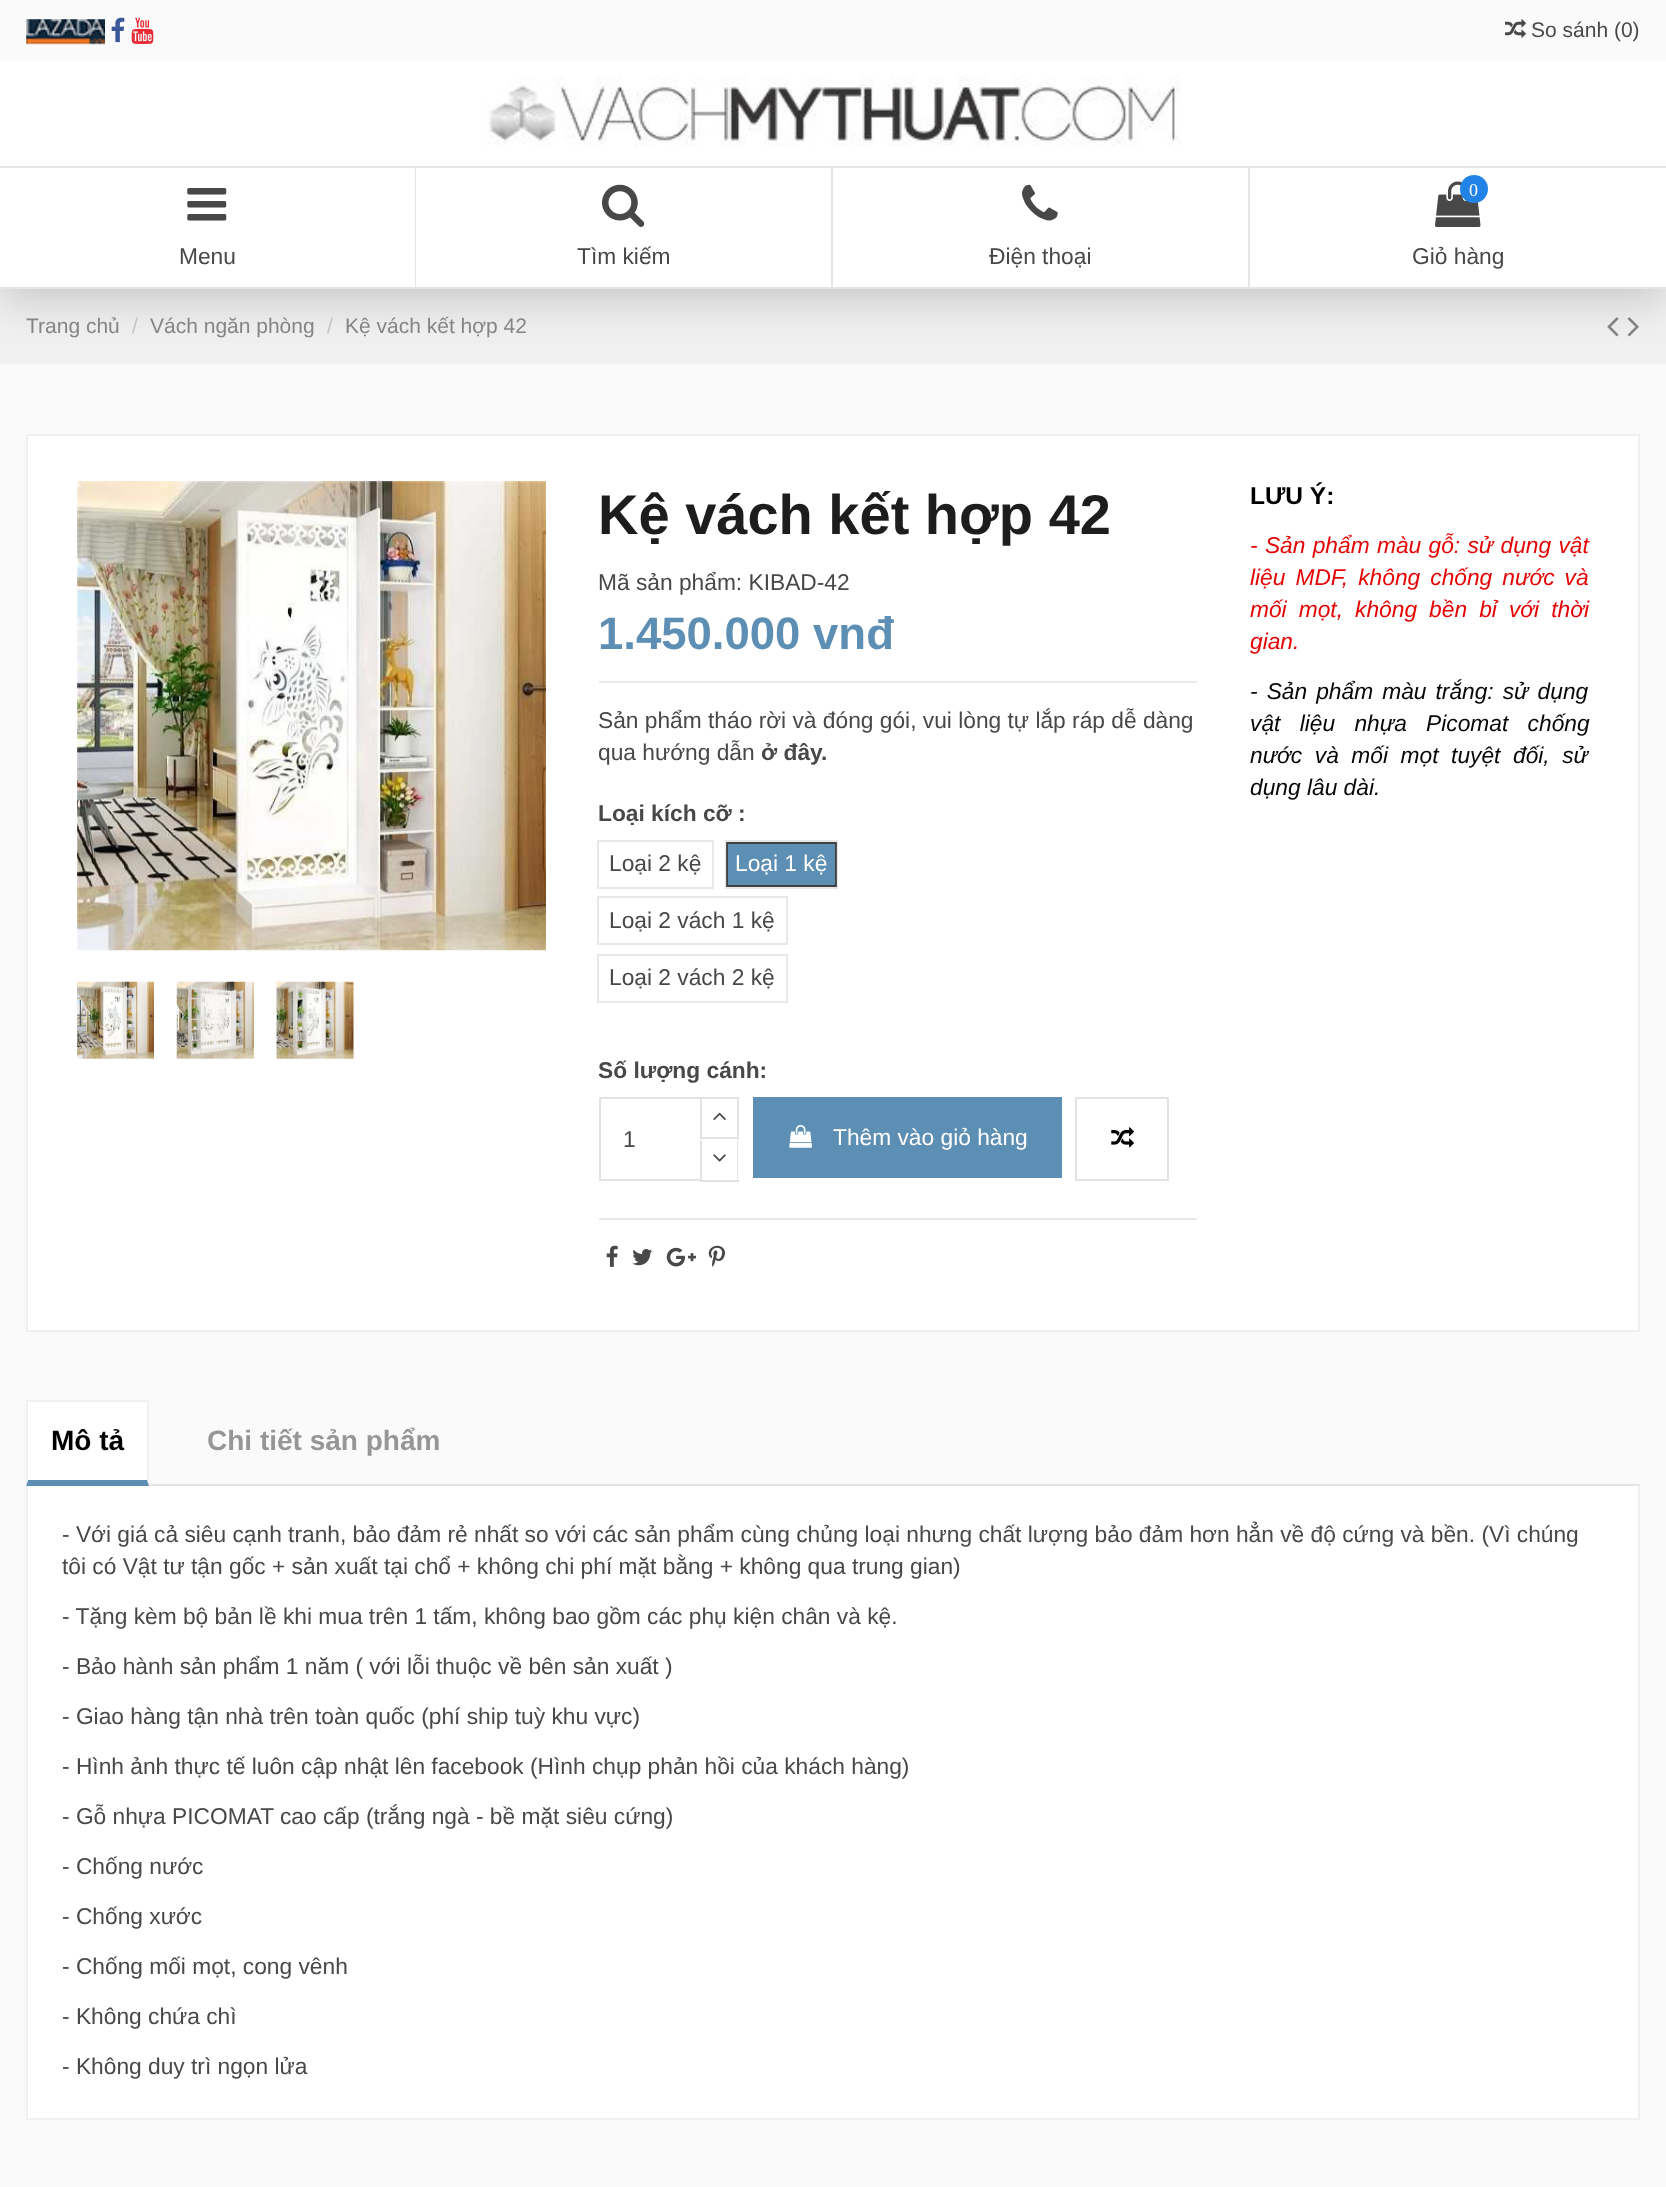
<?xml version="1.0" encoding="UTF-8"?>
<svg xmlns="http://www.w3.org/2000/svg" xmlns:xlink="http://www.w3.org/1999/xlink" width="1666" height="2187">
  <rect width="100%" height="100%" fill="#fafafa" />
  <rect y="289" width="1666" height="75" fill="#f0f0f0" />
  <image x="1607" y="317" width="12" height="20" xlink:href="image10.png" />
  <image x="1627" y="317" width="12" height="20" xlink:href="image11.png" />
  <rect y="9" width="1666" height="289" fill="#000000" fill-opacity="0.18" filter="blur(22px)" />
  <rect y="61" width="1666" height="228" fill="#ffffff" />
  <rect width="1666" height="61" fill="#fafafa" />
  <image x="26" y="19" width="79" height="26" xlink:href="image1.png" />
  <image x="111" y="17" width="14" height="26" xlink:href="image2.png" />
  <image x="131" y="17" width="23" height="27" xlink:href="image3.png" />
  <image x="1505" y="19" width="21" height="19" xlink:href="image4.png" />
  <image x="481" y="75" width="700" height="71" xlink:href="image5.png" />
  <path d="M 0 166 h 416 l -1 2 h -415 z" fill="#e5e5e5" />
  <path d="M 416 166 v 123 l -1 -2 v -119 z" fill="#151515" fill-opacity="0.11" />
  <path d="M 416 289 h -416 v -2 h 415 z" fill="#151515" fill-opacity="0.11" />
  <image x="187" y="188" width="40" height="33" xlink:href="image6.png" />
  <path d="M 416 166 h 417 l -2 2 h -415 z" fill="#e5e5e5" />
  <path d="M 833 166 v 123 l -2 -2 v -119 z" fill="#151515" fill-opacity="0.11" />
  <path d="M 833 289 h -417 v -2 h 415 z" fill="#151515" fill-opacity="0.11" />
  <image x="602" y="184" width="43" height="43" xlink:href="image7.png" />
  <path d="M 833 166 h 417 l -2 2 h -415 z" fill="#e5e5e5" />
  <path d="M 1250 166 v 123 l -2 -2 v -119 z" fill="#151515" fill-opacity="0.11" />
  <path d="M 1250 289 h -417 v -2 h 415 z" fill="#151515" fill-opacity="0.11" />
  <image x="1022" y="184" width="36" height="37" xlink:href="image8.png" />
  <rect x="1250" y="166" width="416" height="2" fill="#e5e5e5" />
  <rect x="1250" y="287" width="416" height="2" fill="#e5e5e5" />
  <image x="1435" y="181" width="46" height="46" xlink:href="image9.png" />
  <circle cx="1474" cy="189" r="14" fill="#2183e6" />
  <rect x="27" y="435" width="1612" height="896" fill="#ffffff" stroke="#f0f0f0" stroke-width="2" />
  <image x="77" y="481" width="469" height="470" xlink:href="image12.png" />
  <image x="77" y="981" width="77" height="78" xlink:href="image13.png" />
  <image x="176" y="981" width="78" height="78" xlink:href="image14.png" />
  <image x="276" y="981" width="78" height="78" xlink:href="image15.png" />
  <rect x="599" y="681" width="598" height="2" fill="#e8e8e8" />
  <rect x="598" y="841" width="115" height="47" fill="none" stroke="#e8e8e8" stroke-width="2" />
  <rect x="727" y="843" width="109" height="43" fill="#5d8eb3" stroke="#414141" stroke-width="2" />
  <rect x="726" y="841" width="111" height="47" fill="none" stroke="#a1a1a1" stroke-opacity="0.25" stroke-width="2" />
  <rect x="598" y="897" width="189" height="47" fill="none" stroke="#e8e8e8" stroke-width="2" />
  <rect x="598" y="955" width="189" height="47" fill="none" stroke="#e8e8e8" stroke-width="2" />
  <rect x="600" y="1098" width="101" height="82" fill="none" stroke="#e3e3e3" stroke-width="2" />
  <rect x="701" y="1098" width="37" height="40" fill="none" stroke="#e3e3e3" stroke-width="2" />
  <image x="713" y="1112" width="13" height="8" xlink:href="image16.png" />
  <rect x="700" y="1139" width="2" height="41" fill="#ffffff" />
  <path d="M 738 1139 v 42 l -1 -1 v -39 z" fill="#e3e3e3" />
  <rect x="700" y="1180" width="39" height="2" fill="#e3e3e3" />
  <path d="M 700 1181 v -42 l 2 2 v 39 z" fill="#e3e3e3" />
  <image x="713" y="1154" width="13" height="8" xlink:href="image17.png" />
  <rect x="753" y="1097" width="309" height="81" fill="#5d8eb3" />
  <image x="789" y="1125" width="23" height="23" xlink:href="image18.png" />
  <rect x="1076" y="1098" width="92" height="82" fill="none" stroke="#e3e3e3" stroke-width="2" />
  <image x="1111" y="1127" width="23" height="21" xlink:href="image19.png" />
  <rect x="599" y="1218" width="598" height="2" fill="#e8e8e8" />
  <image x="606" y="1245" width="12" height="22" xlink:href="image20.png" />
  <image x="632" y="1249" width="21" height="17" xlink:href="image21.png" />
  <image x="666" y="1247" width="30" height="20" xlink:href="image22.png" />
  <image x="708" y="1245" width="17" height="22" xlink:href="image23.png" />
  <rect x="26" y="1484" width="1614" height="2" fill="#e4e4e4" />
  <rect x="28" y="1402" width="119" height="78" fill="#ffffff" />
  <rect x="26" y="1400" width="123" height="2" fill="#f0f0f0" />
  <path d="M 149 1400 v 86 l -2 -6 v -78 z" fill="#f0f0f0" />
  <path d="M 149 1486 h -123 l 2 -6 h 119 z" fill="#5d8eb3" />
  <path d="M 26 1486 v -86 l 2 2 v 78 z" fill="#f0f0f0" />
  <rect x="28" y="1486" width="1610" height="632" fill="#ffffff" />
  <rect x="1638" y="1486" width="2" height="633" fill="#f0f0f0" />
  <rect x="26" y="2118" width="1614" height="2" fill="#f0f0f0" />
  <rect x="26" y="1486" width="2" height="633" fill="#f0f0f0" />
  <text x="1531" y="37" style="font-family: Liberation Sans; font-size: 21px; fill: #484848">So sánh (0)</text>
  <text x="179" y="264" style="font-family: Liberation Sans; font-size: 22.75px; fill: #484848">Menu</text>
  <text x="577" y="264" style="font-family: Liberation Sans; font-size: 22.75px; fill: #484848">Tìm kiếm</text>
  <text x="989" y="264" style="font-family: Liberation Sans; font-size: 22.75px; fill: #484848">Điện thoại</text>
  <text x="1469" y="196" style="font-family: Liberation Serif; font-size: 18px; fill: #ffffff">0</text>
  <text x="1412" y="264" style="font-family: Liberation Sans; font-size: 22.75px; fill: #484848">Giỏ hàng</text>
  <text x="26" y="333" style="font-family: Liberation Sans; font-size: 21px; fill: #858585">Trang chủ</text>
  <text x="132" y="333" style="font-family: Liberation Sans; font-size: 21px; fill: #c5c5c5">/</text>
  <text x="150" y="333" style="font-family: Liberation Sans; font-size: 21px; fill: #858585">Vách ngăn phòng</text>
  <text x="327" y="333" style="font-family: Liberation Sans; font-size: 21px; fill: #c5c5c5">/</text>
  <text x="345" y="333" style="font-family: Liberation Sans; font-size: 21px; fill: #858585">Kệ vách kết hợp 42</text>
  <text x="598" y="534" style="font-family: Liberation Sans; font-size: 56px; font-weight: bold; fill: #1d1d1d">Kệ vách kết hợp 42</text>
  <text x="598" y="590" style="font-family: Liberation Sans; font-size: 22.75px; fill: #484848">Mã sản phẩm: KIBAD-42</text>
  <text x="598" y="649" style="font-family: Liberation Sans; font-size: 45.5px; font-weight: bold; fill: #5d8eb3">1.450.000 vnđ</text>
  <text x="598" y="728" style="font-family: Liberation Sans; font-size: 22.75px; fill: #484848">Sản phẩm tháo rời và đóng gói, vui lòng tự lắp ráp dễ dàng</text>
  <text x="598" y="760" style="font-family: Liberation Sans; font-size: 22.75px; fill: #484848">qua hướng dẫn</text>
  <text x="761" y="760" style="font-family: Liberation Sans; font-size: 22.75px; font-weight: bold; fill: #484848">ở đây.</text>
  <text x="598" y="821" style="font-family: Liberation Sans; font-size: 22.75px; font-weight: bold; fill: #484848">Loại kích cỡ :</text>
  <text x="609" y="871" style="font-family: Liberation Sans; font-size: 22.75px; fill: #484848">Loại 2 kệ</text>
  <text x="735" y="871" style="font-family: Liberation Sans; font-size: 22.75px; fill: #ffffff">Loại 1 kệ</text>
  <text x="609" y="928" style="font-family: Liberation Sans; font-size: 22.75px; fill: #484848">Loại 2 vách 1 kệ</text>
  <text x="609" y="985" style="font-family: Liberation Sans; font-size: 22.75px; fill: #484848">Loại 2 vách 2 kệ</text>
  <text x="598" y="1078" style="font-family: Liberation Sans; font-size: 22.75px; font-weight: bold; fill: #484848">Số lượng cánh:</text>
  <text x="623" y="1147" style="font-family: Liberation Sans; font-size: 22.75px; fill: #484848">1</text>
  <text x="833" y="1145" style="font-family: Liberation Sans; font-size: 22.75px; fill: #ffffff">Thêm vào giỏ hàng</text>
  <text x="1250" y="504" style="font-family: Liberation Sans; font-size: 24.5px; font-weight: bold; fill: #000000">LƯU Ý:</text>
  <text x="1250" y="553" word-spacing="1" style="font-family: Liberation Sans; font-size: 22.75px; font-style: italic; fill: #e40606">- Sản phẩm màu gỗ: sử dụng vật</text>
  <text x="1250" y="585" word-spacing="3.75" style="font-family: Liberation Sans; font-size: 22.75px; font-style: italic; fill: #e40606">liệu MDF, không chống nước và</text>
  <text x="1250" y="617" word-spacing="5.75" style="font-family: Liberation Sans; font-size: 22.75px; font-style: italic; fill: #e40606">mối mọt, không bền bỉ với thời</text>
  <text x="1250" y="649" style="font-family: Liberation Sans; font-size: 22.75px; font-style: italic; fill: #e40606">gian.</text>
  <text x="1250" y="699" word-spacing="2.75" style="font-family: Liberation Sans; font-size: 22.75px; font-style: italic; fill: #070707">- Sản phẩm màu trắng: sử dụng</text>
  <text x="1250" y="731" word-spacing="13" style="font-family: Liberation Sans; font-size: 22.75px; font-style: italic; fill: #070707">vật liệu nhựa Picomat chống</text>
  <text x="1250" y="763" word-spacing="6.25" style="font-family: Liberation Sans; font-size: 22.75px; font-style: italic; fill: #070707">nước và mối mọt tuyệt đối, sử</text>
  <text x="1250" y="795" style="font-family: Liberation Sans; font-size: 22.75px; font-style: italic; fill: #070707">dụng lâu dài.</text>
  <text x="51" y="1450" style="font-family: Liberation Sans; font-size: 28px; font-weight: bold; fill: #000000">Mô tả</text>
  <text x="207" y="1450" style="font-family: Liberation Sans; font-size: 28px; font-weight: bold; fill: #969696">Chi tiết sản phẩm</text>
  <text x="62" y="1542" style="font-family: Liberation Sans; font-size: 22.75px; fill: #484848">- Với giá cả siêu cạnh tranh, bảo đảm rẻ nhất so với các sản phẩm cùng chủng loại nhưng chất lượng bảo đảm hơn hẳn về độ cứng và bền. (Vì chúng</text>
  <text x="62" y="1574" style="font-family: Liberation Sans; font-size: 22.75px; fill: #484848">tôi có Vật tư tận gốc + sản xuất tại chổ + không chi phí mặt bằng + không qua trung gian)</text>
  <text x="62" y="1624" style="font-family: Liberation Sans; font-size: 22.75px; fill: #484848">- Tặng kèm bộ bản lề khi mua trên 1 tấm, không bao gồm các phụ kiện chân và kệ.</text>
  <text x="62" y="1674" style="font-family: Liberation Sans; font-size: 22.75px; fill: #484848">- Bảo hành sản phẩm 1 năm ( với lỗi thuộc về bên sản xuất )</text>
  <text x="62" y="1724" style="font-family: Liberation Sans; font-size: 22.75px; fill: #484848">- Giao hàng tận nhà trên toàn quốc (phí ship tuỳ khu vực)</text>
  <text x="62" y="1774" style="font-family: Liberation Sans; font-size: 22.75px; fill: #484848">- Hình ảnh thực tế luôn cập nhật lên facebook (Hình chụp phản hồi của khách hàng)</text>
  <text x="62" y="1824" style="font-family: Liberation Sans; font-size: 22.75px; fill: #484848">- Gỗ nhựa PICOMAT cao cấp (trắng ngà - bề mặt siêu cứng)</text>
  <text x="62" y="1874" style="font-family: Liberation Sans; font-size: 22.75px; fill: #484848">- Chống nước</text>
  <text x="62" y="1924" style="font-family: Liberation Sans; font-size: 22.75px; fill: #484848">- Chống xước</text>
  <text x="62" y="1974" style="font-family: Liberation Sans; font-size: 22.75px; fill: #484848">- Chống mối mọt, cong vênh</text>
  <text x="62" y="2024" style="font-family: Liberation Sans; font-size: 22.75px; fill: #484848">- Không chứa chì</text>
  <text x="62" y="2074" style="font-family: Liberation Sans; font-size: 22.75px; fill: #484848">- Không duy trì ngọn lửa</text>
</svg>
